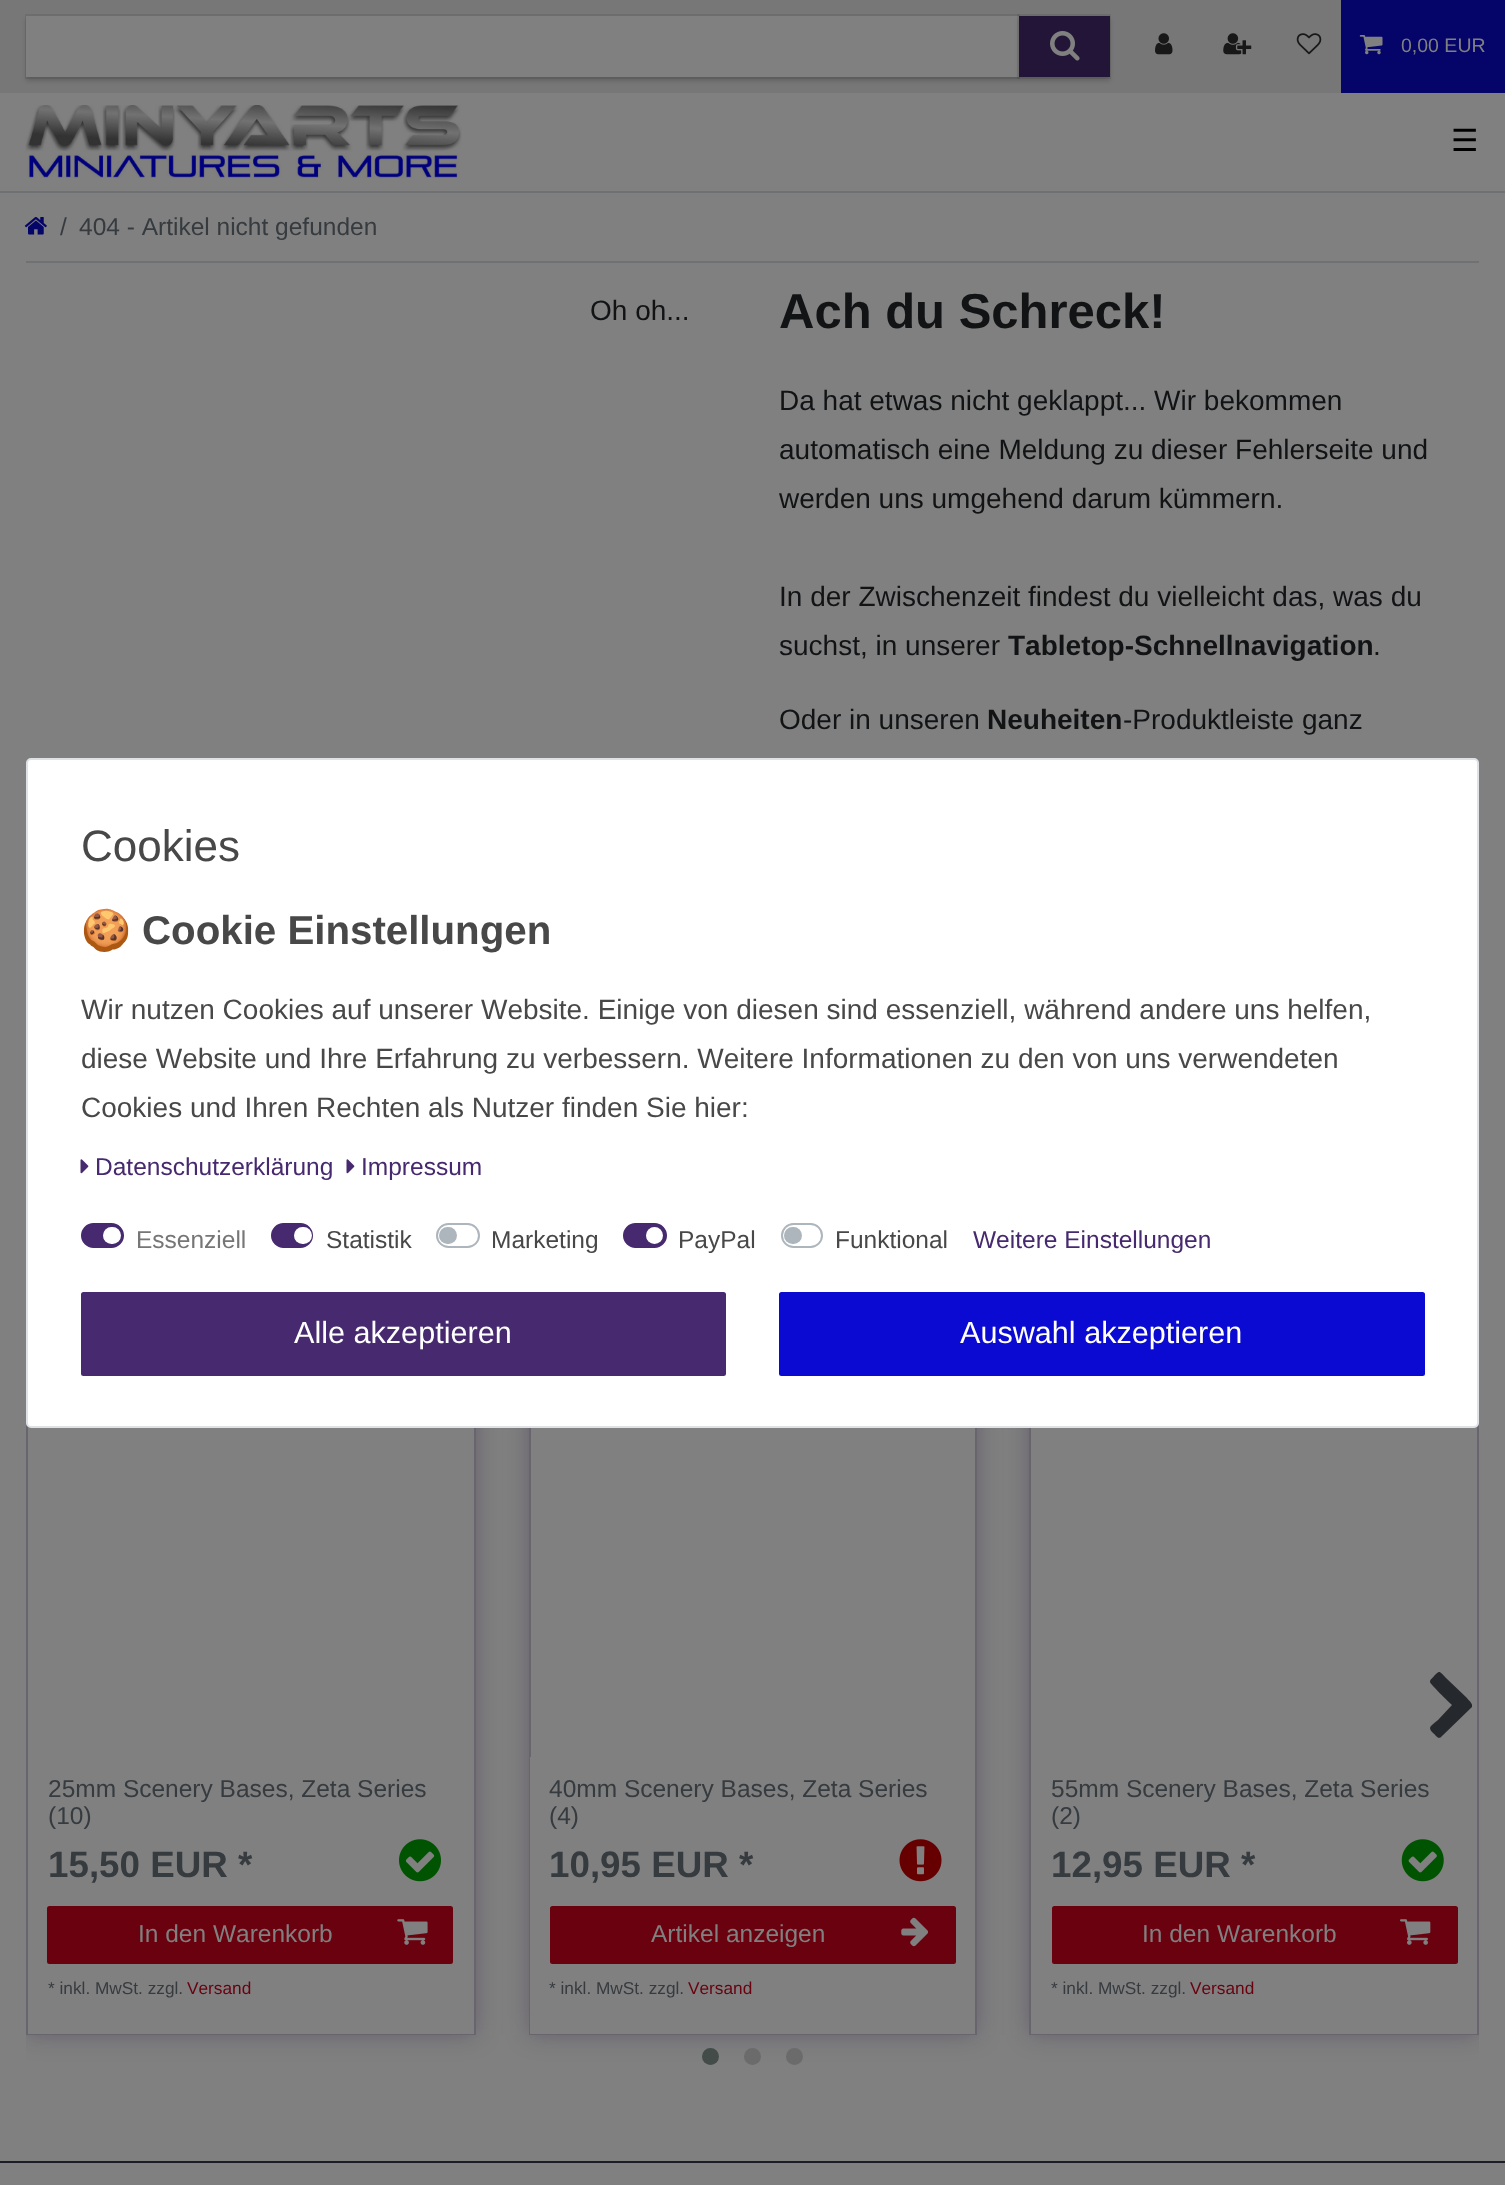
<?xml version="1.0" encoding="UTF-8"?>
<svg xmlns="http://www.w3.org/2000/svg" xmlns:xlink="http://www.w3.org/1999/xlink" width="1505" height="2185">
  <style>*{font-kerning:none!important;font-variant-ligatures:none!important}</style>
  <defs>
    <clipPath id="clip1"><rect x="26" y="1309" width="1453" height="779" /></clipPath>
  </defs>
  <rect width="100%" height="100%" fill="#808080" />
  <rect width="1341" height="93" fill="#777777" />
  <rect x="26" y="15" width="993" height="63" fill="none" stroke="#6e6e6e" stroke-width="2" />
  <rect x="26" y="19" width="993" height="62" fill="#000000" fill-opacity="0.16" filter="blur(2px)" />
  <rect x="26" y="16" width="993" height="61" fill="#808080" />
  <rect x="1018" y="15" width="92" height="63" fill="none" stroke="#000000" stroke-opacity="0.08" stroke-width="2" />
  <rect x="1019" y="19" width="91" height="62" fill="#000000" fill-opacity="0.16" filter="blur(2px)" />
  <rect x="1019" y="16" width="91" height="61" fill="#231537" />
  <image x="1050" y="31" width="30" height="30" xlink:href="image1.png" />
  <image x="1155" y="33" width="18" height="22" xlink:href="image2.png" />
  <image x="1223" y="33" width="29" height="22" xlink:href="image3.png" />
  <image x="1296" y="33" width="26" height="22" xlink:href="image4.png" />
  <rect x="1341" width="164" height="93" fill="#050569" />
  <image x="1359" y="35" width="24" height="20" xlink:href="image5.png" />
  <rect y="191" width="1505" height="2" fill="#6f7173" />
  <image x="25" y="105" width="437" height="73" xlink:href="image6.png" />
  <image x="24" y="217" width="23" height="18" xlink:href="image7.png" />
  <rect x="26" y="261" width="1453" height="2" fill="#6f7173" />
  <g clip-path="url(#clip1)">
    <rect x="1029" y="1309" width="450" height="726" fill="#231537" fill-opacity="0.3" filter="blur(12px)" />
  </g>
  <rect x="1031" y="1427" width="446" height="330" fill="#808080" />
  <rect x="1030" y="1310" width="448" height="724" fill="none" stroke="#69656e" stroke-width="2" />
  <path d="M 1472 1707 l -31 30 c -3 3 -6 -3 -8 -4 c -6 -6 -2 -7 5 -13 l 14 -15 c -3 -3 -22 -21 -22 -23 c 0 -3 3 -4 4 -6 c 6 -6 5 -5 12 2 l 21 20 c 0 1 6 5 5 8 z" fill="#25282c" />
  <g clip-path="url(#clip1)">
    <rect x="26" y="1309" width="450" height="726" fill="#231537" fill-opacity="0.3" filter="blur(12px)" />
  </g>
  <rect x="28" y="1427" width="446" height="330" fill="#808080" />
  <rect x="27" y="1310" width="448" height="724" fill="none" stroke="#69656e" stroke-width="2" />
  <rect x="28" y="1757" width="446" height="277" fill="#808080" />
  <image x="399" y="1839" width="42" height="43" xlink:href="image8.png" />
  <rect x="48" y="1907" width="404" height="56" rx="1.5" fill="#6a010f" stroke="#6a010f" stroke-width="2" />
  <image x="397" y="1919" width="31" height="26" xlink:href="image9.png" />
  <rect x="529" y="1309" width="448" height="726" fill="#231537" fill-opacity="0.3" filter="blur(12px)" />
  <rect x="531" y="1428" width="444" height="329" fill="#808080" />
  <rect x="530" y="1310" width="446" height="724" fill="none" stroke="#69656e" stroke-width="2" />
  <rect x="530" y="1757" width="445" height="277" fill="#808080" />
  <image x="899" y="1839" width="43" height="43" xlink:href="image10.png" />
  <rect x="551" y="1907" width="404" height="56" rx="1.5" fill="#6a010f" stroke="#6a010f" stroke-width="2" />
  <image x="901" y="1917" width="27" height="30" xlink:href="image11.png" />
  <rect x="1031" y="1757" width="446" height="277" fill="#808080" />
  <image x="1401" y="1839" width="43" height="43" xlink:href="image12.png" />
  <rect x="1053" y="1907" width="404" height="56" rx="1.5" fill="#6a010f" stroke="#6a010f" stroke-width="2" />
  <image x="1400" y="1919" width="31" height="26" xlink:href="image13.png" />
  <circle cx="710.5" cy="2056.5" r="8.5" fill="#434c49" />
  <circle cx="752.5" cy="2056.5" r="8.5" fill="#6b6b6b" />
  <circle cx="794.5" cy="2056.5" r="8.5" fill="#6b6b6b" />
  <rect y="2161" width="1505" height="2" fill="#1c1d26" />
  <rect x="27" y="759" width="1451" height="668" rx="4" fill="#ffffff" stroke="#dee2e6" stroke-width="2" />
  <image x="80" y="1159" width="9" height="15" xlink:href="image14.png" />
  <image x="346" y="1159" width="9" height="15" xlink:href="image14.png" />
  <rect x="82" y="1224" width="41" height="23" rx="11.5" fill="#46296e" stroke="#46296e" stroke-width="2" />
  <rect x="103" y="1227" width="18" height="17" rx="8.5" fill="#ffffff" />
  <rect x="272" y="1224" width="40" height="23" rx="11.5" fill="#46296e" stroke="#46296e" stroke-width="2" />
  <rect x="294" y="1227" width="18" height="17" rx="8.5" fill="#ffffff" />
  <rect x="437" y="1224" width="42" height="23" rx="11.5" fill="none" stroke="#adb5bd" stroke-width="2" />
  <rect x="439" y="1227" width="18" height="17" rx="8.5" fill="#adb5bd" />
  <rect x="624" y="1224" width="42" height="23" rx="11.5" fill="#46296e" stroke="#46296e" stroke-width="2" />
  <circle cx="654.5" cy="1235.5" r="8.5" fill="#ffffff" />
  <rect x="782" y="1224" width="40" height="23" rx="11.5" fill="none" stroke="#adb5bd" stroke-width="2" />
  <rect x="784" y="1227" width="18" height="17" rx="8.5" fill="#adb5bd" />
  <rect x="82" y="1293" width="643" height="82" rx="1.5" fill="#46296e" stroke="#46296e" stroke-width="2" />
  <rect x="780" y="1293" width="644" height="82" rx="1.5" fill="#0a0ad2" stroke="#0a0ad2" stroke-width="2" />
  <text x="1401" y="52" style="font-family: Liberation Sans; font-size: 19.5px; fill: #808080">0,00 EUR</text>
  <text x="1451" y="151" style="font-family: DejaVu Sans; font-size: 30.6px; fill: #000000">☰</text>
  <text x="60" y="235" style="font-family: Liberation Sans; font-size: 24.5px; fill: #363b3f">/</text>
  <text x="79" y="235" style="font-family: Liberation Sans; font-size: 24.5px; fill: #363b3f">404 - Artikel nicht gefunden</text>
  <text x="590" y="320" style="font-family: Liberation Sans; font-size: 28px; fill: #111315">Oh oh...</text>
  <text x="779" y="328" style="font-family: Liberation Sans; font-size: 49px; font-weight: bold; fill: #111315">Ach du Schreck!</text>
  <text x="779" y="410" style="font-family: Liberation Sans; font-size: 28px; fill: #111315">Da hat etwas nicht geklappt... Wir bekommen</text>
  <text x="779" y="459" style="font-family: Liberation Sans; font-size: 28px; fill: #111315">automatisch eine Meldung zu dieser Fehlerseite und</text>
  <text x="779" y="508" style="font-family: Liberation Sans; font-size: 28px; fill: #111315">werden uns umgehend darum kümmern.</text>
  <text x="779" y="606" style="font-family: Liberation Sans; font-size: 28px; fill: #111315">In der Zwischenzeit findest du vielleicht das, was du</text>
  <text x="779" y="655" style="font-family: Liberation Sans; font-size: 28px; fill: #111315">suchst, in unserer</text>
  <text x="1008" y="655" style="font-family: Liberation Sans; font-size: 28px; font-weight: bold; fill: #111315">Tabletop-Schnellnavigation</text>
  <text x="1373" y="655" style="font-family: Liberation Sans; font-size: 28px; fill: #111315">.</text>
  <text x="779" y="729" style="font-family: Liberation Sans; font-size: 28px; fill: #111315">Oder in unseren</text>
  <text x="987" y="729" style="font-family: Liberation Sans; font-size: 28px; font-weight: bold; fill: #111315">Neuheiten</text>
  <text x="1123" y="729" style="font-family: Liberation Sans; font-size: 28px; fill: #111315">-Produktleiste ganz</text>
  <text x="48" y="1797" style="font-family: Liberation Sans; font-size: 24.5px; fill: #363b3f">25mm Scenery Bases, Zeta Series</text>
  <text x="48" y="1824" style="font-family: Liberation Sans; font-size: 24.5px; fill: #363b3f">(10)</text>
  <text x="48" y="1877" style="font-family: Liberation Sans; font-size: 36.75px; font-weight: bold; fill: #363b3f">15,50 EUR *</text>
  <text x="138" y="1942" style="font-family: Liberation Sans; font-size: 24.5px; fill: #808080">In den Warenkorb</text>
  <text x="48" y="1994" style="font-family: Liberation Sans; font-size: 17.25px; fill: #363b3f">* inkl. MwSt. zzgl.</text>
  <text x="187" y="1994" style="font-family: Liberation Sans; font-size: 17.25px; fill: #6a010f">Versand</text>
  <text x="549" y="1797" style="font-family: Liberation Sans; font-size: 24.5px; fill: #363b3f">40mm Scenery Bases, Zeta Series</text>
  <text x="549" y="1824" style="font-family: Liberation Sans; font-size: 24.5px; fill: #363b3f">(4)</text>
  <text x="549" y="1877" style="font-family: Liberation Sans; font-size: 36.75px; font-weight: bold; fill: #363b3f">10,95 EUR *</text>
  <text x="651" y="1942" style="font-family: Liberation Sans; font-size: 24.5px; fill: #808080">Artikel anzeigen</text>
  <text x="549" y="1994" style="font-family: Liberation Sans; font-size: 17.25px; fill: #363b3f">* inkl. MwSt. zzgl.</text>
  <text x="688" y="1994" style="font-family: Liberation Sans; font-size: 17.25px; fill: #6a010f">Versand</text>
  <text x="1051" y="1797" style="font-family: Liberation Sans; font-size: 24.5px; fill: #363b3f">55mm Scenery Bases, Zeta Series</text>
  <text x="1051" y="1824" style="font-family: Liberation Sans; font-size: 24.5px; fill: #363b3f">(2)</text>
  <text x="1051" y="1877" style="font-family: Liberation Sans; font-size: 36.75px; font-weight: bold; fill: #363b3f">12,95 EUR *</text>
  <text x="1142" y="1942" style="font-family: Liberation Sans; font-size: 24.5px; fill: #808080">In den Warenkorb</text>
  <text x="1051" y="1994" style="font-family: Liberation Sans; font-size: 17.25px; fill: #363b3f">* inkl. MwSt. zzgl.</text>
  <text x="1190" y="1994" style="font-family: Liberation Sans; font-size: 17.25px; fill: #6a010f">Versand</text>
  <text x="81" y="861" style="font-family: Liberation Sans; font-size: 44px; fill: #484848">Cookies</text>
  <text x="81" y="944" style="font-family: Noto Color Emoji; font-size: 40.25px; font-weight: bold; fill: #484848">🍪</text>
  <text x="142" y="944" style="font-family: Liberation Sans; font-size: 40.25px; font-weight: bold; fill: #484848">Cookie Einstellungen</text>
  <text x="81" y="1019" style="font-family: Liberation Sans; font-size: 28px; fill: #484848">Wir nutzen Cookies auf unserer Website. Einige von diesen sind essenziell, während andere uns helfen,</text>
  <text x="81" y="1068" style="font-family: Liberation Sans; font-size: 28px; fill: #484848">diese Website und Ihre Erfahrung zu verbessern. Weitere Informationen zu den von uns verwendeten</text>
  <text x="81" y="1117" style="font-family: Liberation Sans; font-size: 28px; fill: #484848">Cookies und Ihren Rechten als Nutzer finden Sie hier:</text>
  <text x="95" y="1175" style="font-family: Liberation Sans; font-size: 24.5px; fill: #46296e">Datenschutzerklärung</text>
  <text x="361" y="1175" style="font-family: Liberation Sans; font-size: 24.5px; fill: #46296e">Impressum</text>
  <text x="136" y="1248" style="font-family: Liberation Sans; font-size: 24.5px; fill: #767676">Essenziell</text>
  <text x="326" y="1248" style="font-family: Liberation Sans; font-size: 24.5px; fill: #484848">Statistik</text>
  <text x="491" y="1248" style="font-family: Liberation Sans; font-size: 24.5px; fill: #484848">Marketing</text>
  <text x="678" y="1248" style="font-family: Liberation Sans; font-size: 24.5px; fill: #484848">PayPal</text>
  <text x="835" y="1248" style="font-family: Liberation Sans; font-size: 24.5px; fill: #484848">Funktional</text>
  <text x="973" y="1248" style="font-family: Liberation Sans; font-size: 24.5px; fill: #46296e">Weitere Einstellungen</text>
  <text x="294" y="1343" style="font-family: Liberation Sans; font-size: 30.6px; fill: #ffffff">Alle akzeptieren</text>
  <text x="960" y="1343" style="font-family: Liberation Sans; font-size: 30.6px; fill: #ffffff">Auswahl akzeptieren</text>
</svg>
